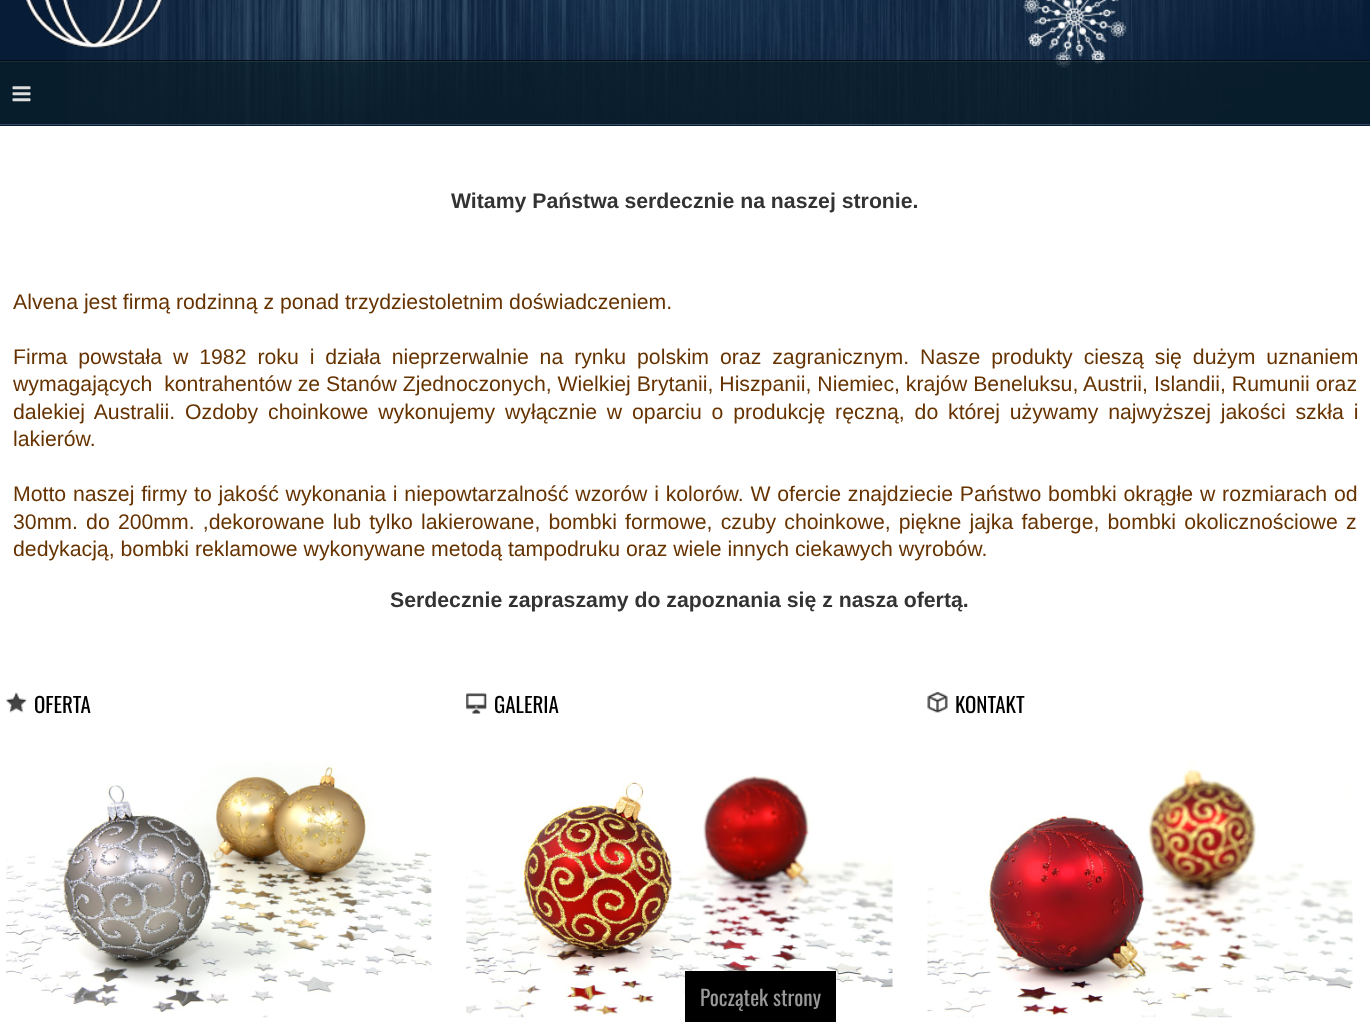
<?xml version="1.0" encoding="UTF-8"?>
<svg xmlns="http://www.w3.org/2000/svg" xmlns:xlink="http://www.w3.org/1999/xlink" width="1370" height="1022">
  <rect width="100%" height="100%" fill="#ffffff" />
  <rect width="1370" height="126" fill="#071c37" />
  <image x="67" y="0" width="1296" height="125" xlink:href="image1.png" />
  <rect y="124" width="1370" height="1" fill="#ffffff" fill-opacity="0.2" />
  <image x="528" y="0" width="359" height="54" xlink:href="image2.png" />
  <image x="26" y="0" width="137" height="48" xlink:href="image3.png" />
  <rect y="61" width="1370" height="63" fill="#0a1e28" fill-opacity="0.75" />
  <rect y="61" width="1370" height="1" fill="#ffffff" fill-opacity="0.08" />
  <rect y="60" width="1370" height="1" fill="#030d19" />
  <image x="12" y="86" width="19" height="16" xlink:href="image4.png" />
  <image x="6" y="692" width="21" height="21" xlink:href="image5.png" />
  <image x="6" y="762" width="426" height="256" xlink:href="image6.png" />
  <image x="466" y="693" width="21" height="21" xlink:href="image7.png" />
  <image x="466" y="775" width="427" height="243" xlink:href="image8.png" />
  <image x="927" y="692" width="21" height="21" xlink:href="image9.png" />
  <image x="927" y="759" width="426" height="259" xlink:href="image10.png" />
  <rect x="685" y="971" width="151" height="51" fill="#000000" />
  <text x="451" y="208" style="font-family: Liberation Sans; font-size: 21.25px; font-weight: bold; fill: #333333">Witamy Państwa serdecznie na naszej stronie.</text>
  <text x="13" y="309" style="font-family: Liberation Sans; font-size: 21.25px; fill: #663300">Alvena jest firmą rodzinną z ponad trzydziestoletnim doświadczeniem.</text>
  <text x="13" y="364" word-spacing="5" style="font-family: Liberation Sans; font-size: 21.25px; fill: #663300">Firma powstała w 1982 roku i działa nieprzerwalnie na rynku polskim oraz zagranicznym. Nasze produkty cieszą się dużym uznaniem</text>
  <text x="13" y="391" style="font-family: Liberation Sans; font-size: 21.25px; fill: #663300" xml:space="preserve">wymagających  kontrahentów ze Stanów Zjednoczonych, Wielkiej Brytanii, Hiszpanii, Niemiec, krajów Beneluksu, Austrii, Islandii, Rumunii oraz</text>
  <text x="13" y="419" word-spacing="3.9" style="font-family: Liberation Sans; font-size: 21.25px; fill: #663300">dalekiej Australii. Ozdoby choinkowe wykonujemy wyłącznie w oparciu o produkcję ręczną, do której używamy najwyższej jakości szkła i</text>
  <text x="13" y="446" style="font-family: Liberation Sans; font-size: 21.25px; fill: #663300">lakierów.</text>
  <text x="13" y="501" word-spacing="0.9" style="font-family: Liberation Sans; font-size: 21.25px; fill: #663300">Motto naszej firmy to jakość wykonania i niepowtarzalność wzorów i kolorów. W ofercie znajdziecie Państwo bombki okrągłe w rozmiarach od</text>
  <text x="13" y="529" word-spacing="2.25" style="font-family: Liberation Sans; font-size: 21.25px; fill: #663300">30mm. do 200mm. ,dekorowane lub tylko lakierowane, bombki formowe, czuby choinkowe, piękne jajka faberge, bombki okolicznościowe z</text>
  <text x="13" y="556" style="font-family: Liberation Sans; font-size: 21.25px; fill: #663300">dedykacją, bombki reklamowe wykonywane metodą tampodruku oraz wiele innych ciekawych wyrobów.</text>
  <text x="390" y="607" style="font-family: Liberation Sans; font-size: 21.25px; font-weight: bold; fill: #333333">Serdecznie zapraszamy do zapoznania się z nasza ofertą.</text>
  <text x="34" y="713" style="font-family: Oswald; font-size: 21px; fill: #000000">OFERTA</text>
  <text x="494" y="713" style="font-family: Oswald; font-size: 21px; fill: #000000">GALERIA</text>
  <text x="955" y="713" style="font-family: Oswald; font-size: 21px; fill: #000000">KONTAKT</text>
  <text x="700" y="1006" style="font-family: Oswald; font-size: 21.25px; fill: #999999">Początek strony</text>
</svg>
